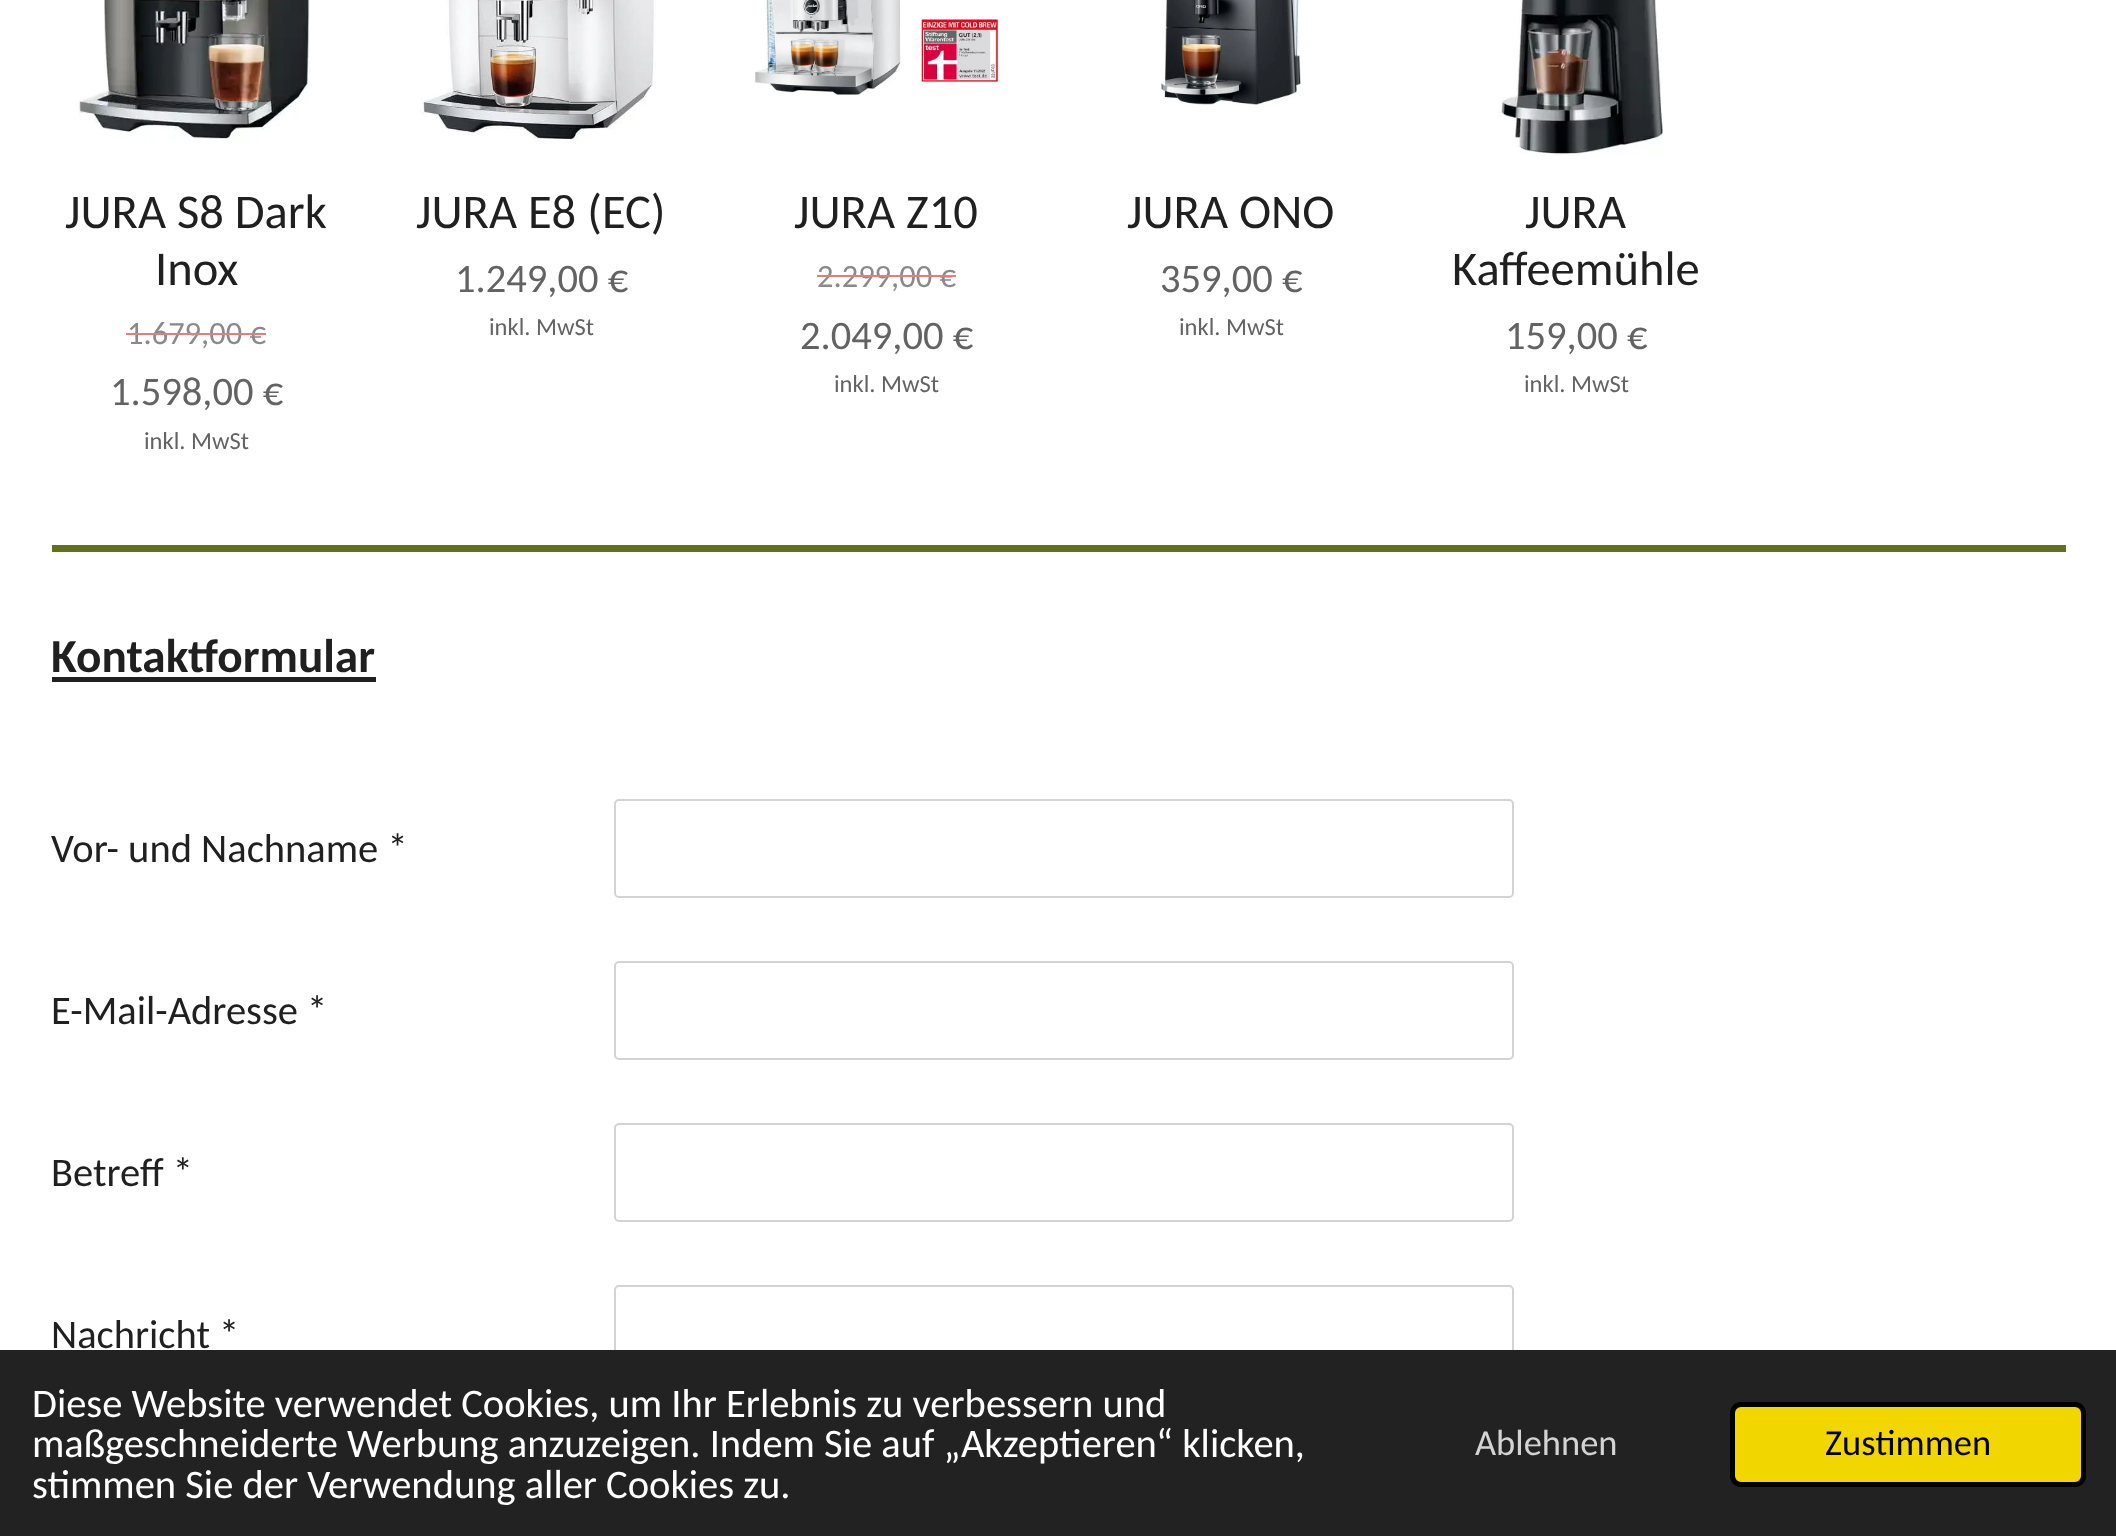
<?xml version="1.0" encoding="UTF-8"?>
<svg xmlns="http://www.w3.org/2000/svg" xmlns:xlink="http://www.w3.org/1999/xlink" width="2116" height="1536">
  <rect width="100%" height="100%" fill="#ffffff" />
  <image x="78" y="0" width="232" height="142" xlink:href="image1.png" />
  <image x="420" y="0" width="236" height="140" xlink:href="image2.png" />
  <image x="755" y="0" width="245" height="96" xlink:href="image3.png" />
  <image x="1161" y="0" width="140" height="105" xlink:href="image4.png" />
  <image x="1499" y="0" width="165" height="156" xlink:href="image5.png" />
  <rect x="52" y="545" width="2014" height="7" fill="#63711f" />
  <rect x="52" y="677" width="324" height="5" fill="#202020" />
  <rect x="615" y="800" width="898" height="97" rx="4" fill="none" stroke="#d3d3d3" stroke-width="2" />
  <rect x="615" y="962" width="898" height="97" rx="4" fill="none" stroke="#d3d3d3" stroke-width="2" />
  <rect x="615" y="1124" width="898" height="97" rx="4" fill="none" stroke="#d3d3d3" stroke-width="2" />
  <rect x="615" y="1286" width="898" height="241" rx="4" fill="none" stroke="#d3d3d3" stroke-width="2" />
  <rect y="1350" width="2116" height="186" fill="#222222" />
  <rect x="1732.5" y="1404.5" width="351" height="80" rx="8.5" fill="#f1d600" stroke="#000000" stroke-width="5" />
  <text x="65" y="228" style="font-family: Carlito; font-size: 48.5px; fill: #202020">JURA S8 Dark</text>
  <text x="155" y="285" style="font-family: Carlito; font-size: 48.5px; fill: #202020">Inox</text>
  <text x="127" y="344" style="font-family: Carlito; font-size: 32.5px; fill: #8a8a8a">1.679,00 €</text>
  <rect x="126" y="333" width="140" height="2" fill="#e37e7b" />
  <text x="110" y="405" style="font-family: Carlito; font-size: 40.5px; fill: #636363">1.598,00 €</text>
  <text x="144" y="449" style="font-family: Carlito; font-size: 24.5px; fill: #636363">inkl. MwSt</text>
  <text x="416" y="228" style="font-family: Carlito; font-size: 48.5px; fill: #202020">JURA E8 (EC)</text>
  <text x="455" y="292" style="font-family: Carlito; font-size: 40.5px; fill: #636363">1.249,00 €</text>
  <text x="489" y="335" style="font-family: Carlito; font-size: 24.5px; fill: #636363">inkl. MwSt</text>
  <text x="794" y="228" style="font-family: Carlito; font-size: 48.5px; fill: #202020">JURA Z10</text>
  <text x="817" y="287" style="font-family: Carlito; font-size: 32.5px; fill: #8a8a8a">2.299,00 €</text>
  <rect x="817" y="275" width="139" height="2" fill="#e37e7b" />
  <text x="800" y="349" style="font-family: Carlito; font-size: 40.5px; fill: #636363">2.049,00 €</text>
  <text x="834" y="392" style="font-family: Carlito; font-size: 24.5px; fill: #636363">inkl. MwSt</text>
  <text x="1127" y="228" style="font-family: Carlito; font-size: 48.5px; fill: #202020">JURA ONO</text>
  <text x="1160" y="292" style="font-family: Carlito; font-size: 40.5px; fill: #636363">359,00 €</text>
  <text x="1179" y="335" style="font-family: Carlito; font-size: 24.5px; fill: #636363">inkl. MwSt</text>
  <text x="1525" y="228" style="font-family: Carlito; font-size: 48.5px; fill: #202020">JURA</text>
  <text x="1452" y="285" style="font-family: Carlito; font-size: 48.5px; fill: #202020">Kaffeemühle</text>
  <text x="1505" y="349" style="font-family: Carlito; font-size: 40.5px; fill: #636363">159,00 €</text>
  <text x="1524" y="392" style="font-family: Carlito; font-size: 24.5px; fill: #636363">inkl. MwSt</text>
  <text x="51" y="672" style="font-family: Carlito; font-size: 47.25px; font-weight: bold; fill: #202020">Kontaktformular</text>
  <text x="51" y="862" style="font-family: Carlito; font-size: 40.5px; fill: #202020">Vor- und Nachname *</text>
  <text x="51" y="1024" style="font-family: Carlito; font-size: 40.5px; fill: #202020">E-Mail-Adresse *</text>
  <text x="51" y="1186" style="font-family: Carlito; font-size: 40.5px; fill: #202020">Betreff *</text>
  <text x="51" y="1348" style="font-family: Carlito; font-size: 40.5px; fill: #202020">Nachricht *</text>
  <text x="32" y="1417" style="font-family: Carlito; font-size: 40.5px; fill: #ffffff">Diese Website verwendet Cookies, um Ihr Erlebnis zu verbessern und</text>
  <text x="32" y="1457" style="font-family: Carlito; font-size: 40.5px; fill: #ffffff">maßgeschneiderte Werbung anzuzeigen. Indem Sie auf „Akzeptieren“ klicken,</text>
  <text x="32" y="1498" style="font-family: Carlito; font-size: 40.5px; fill: #ffffff">stimmen Sie der Verwendung aller Cookies zu.</text>
  <text x="1475" y="1455" style="font-family: Carlito; font-size: 36.5px; fill: #d3d3d3">Ablehnen</text>
  <text x="1825" y="1455" style="font-family: Carlito; font-size: 36.5px; fill: #000000">Zustimmen</text>
</svg>
